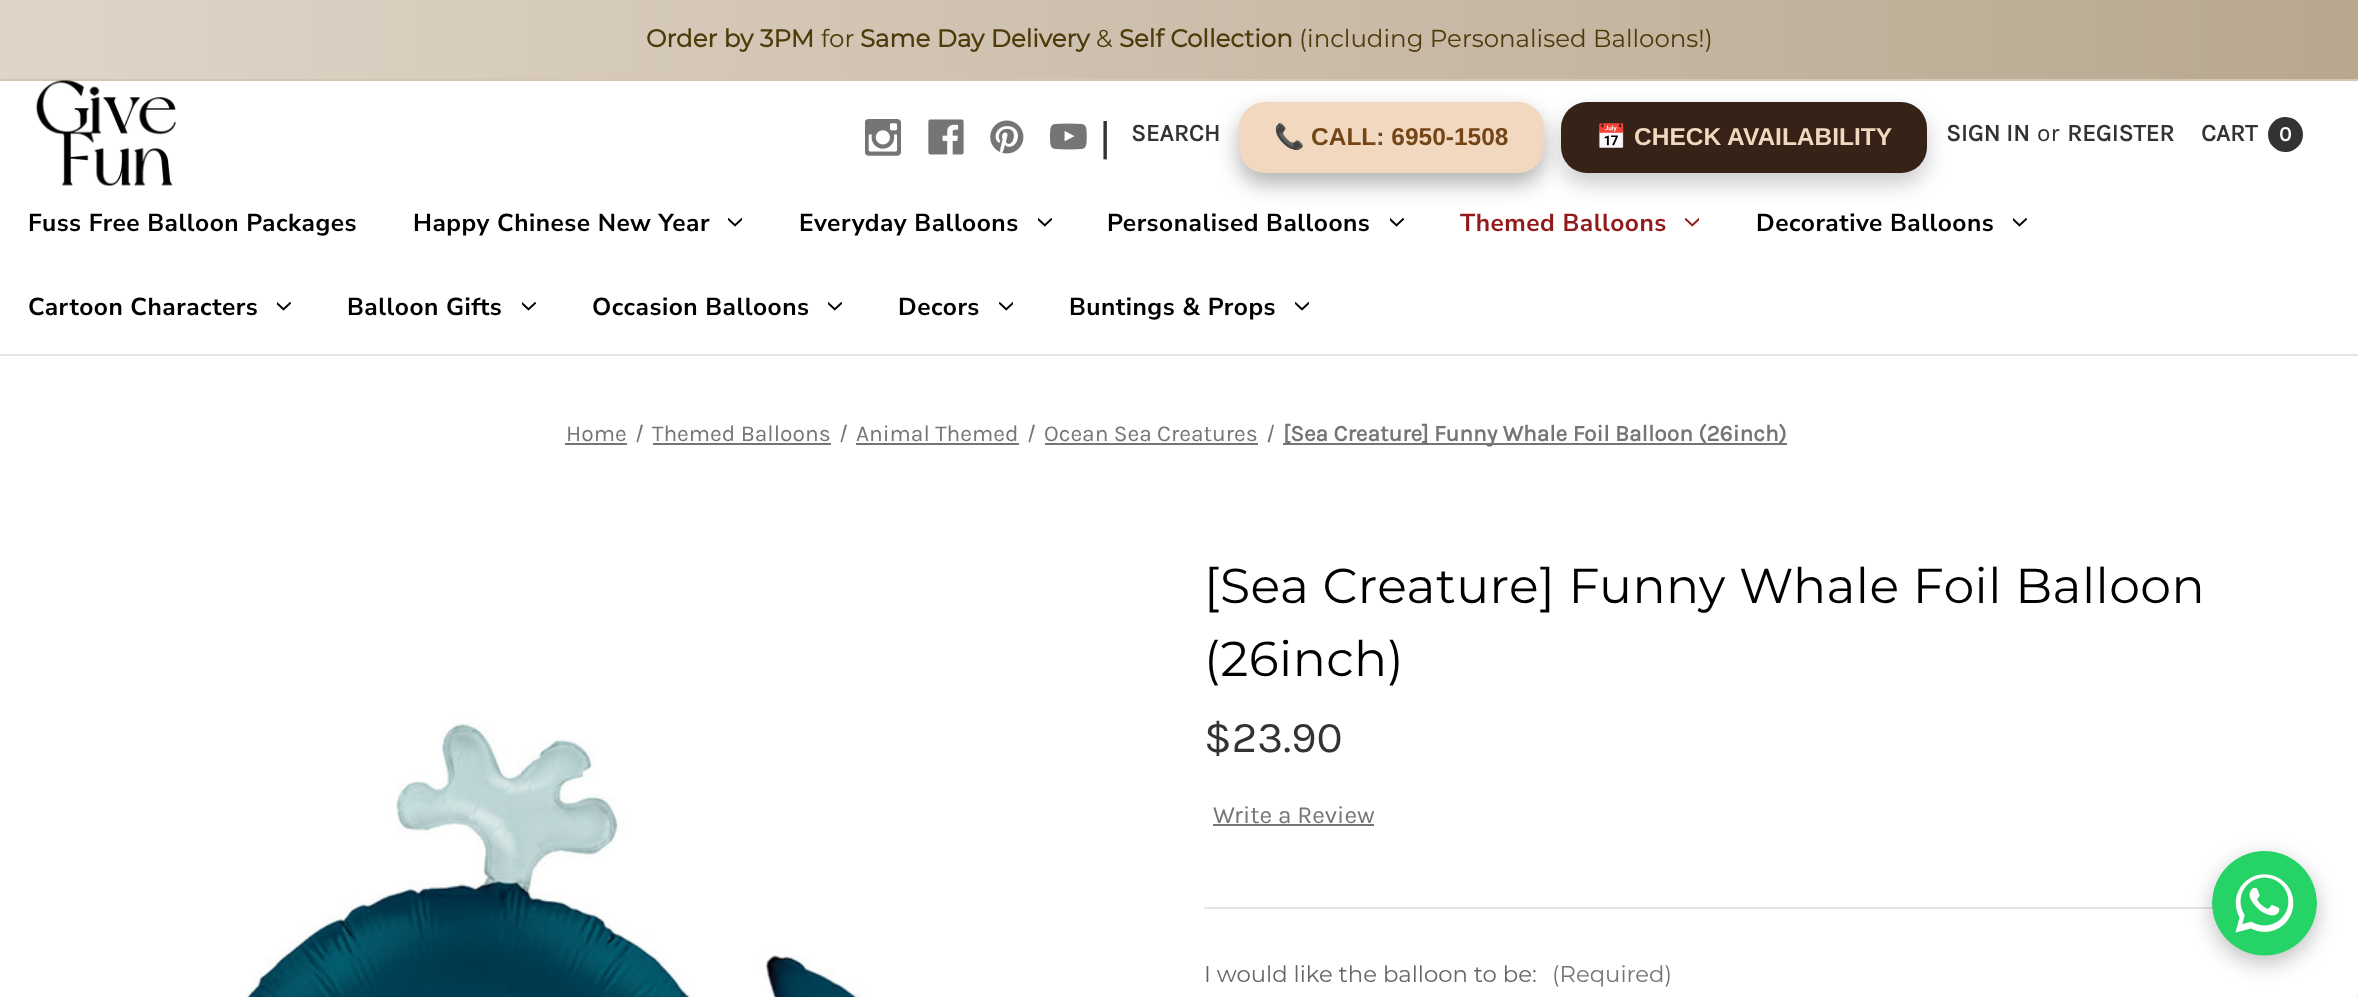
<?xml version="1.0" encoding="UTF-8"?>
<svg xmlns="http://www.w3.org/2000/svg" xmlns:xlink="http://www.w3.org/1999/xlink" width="2358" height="997">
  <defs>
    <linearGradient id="g1" gradientUnits="userSpaceOnUse" x1="0" y1="39" x2="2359" y2="39"><stop offset="0" stop-color="#e0d5c8" /><stop offset="1" stop-color="#b8a890" /></linearGradient>
  </defs>
  <rect width="100%" height="100%" fill="#ffffff" />
  <rect width="2358" height="79" fill="url(#g1)" />
  <rect y="79" width="2358" height="2" fill="#d4c6b2" />
  <rect y="354" width="2358" height="2" fill="#e5e5e5" />
  <image x="36" y="80" width="140" height="106" xlink:href="image1.png" />
  <image x="865" y="119" width="36" height="37" xlink:href="image2.png" />
  <image x="928" y="119" width="36" height="36" xlink:href="image3.png" />
  <image x="990" y="120" width="34" height="34" xlink:href="image4.png" />
  <image x="1050" y="123" width="37" height="27" xlink:href="image5.png" />
  <rect x="1239" y="112" width="305" height="72" rx="26" fill="#000000" fill-opacity="0.3" filter="blur(10.5px)" />
  <rect x="1239" y="102" width="305" height="71" rx="26" fill="#f1d8bf" />
  <rect x="1561" y="112" width="366" height="72" rx="26" fill="#000000" fill-opacity="0.2" filter="blur(10.5px)" />
  <rect x="1561" y="102" width="366" height="71" rx="26" fill="#362217" />
  <circle cx="2285.5" cy="134.5" r="17.5" fill="#333333" />
  <image x="728" y="218" width="14" height="9" xlink:href="image6.png" />
  <image x="1038" y="218" width="14" height="9" xlink:href="image7.png" />
  <image x="1390" y="218" width="14" height="9" xlink:href="image8.png" />
  <image x="1685" y="218" width="14" height="9" xlink:href="image9.png" />
  <image x="2013" y="218" width="14" height="9" xlink:href="image8.png" />
  <image x="277" y="302" width="14" height="9" xlink:href="image8.png" />
  <image x="522" y="302" width="14" height="9" xlink:href="image8.png" />
  <image x="828" y="302" width="14" height="9" xlink:href="image7.png" />
  <image x="999" y="302" width="14" height="9" xlink:href="image10.png" />
  <image x="1295" y="302" width="14" height="9" xlink:href="image6.png" />
  <rect x="565" y="443" width="62" height="2" fill="#757575" />
  <path d="M 641 424.5 l 2 0.5 l -5 17.5 l -1.5 -0.5 z" fill="#757575" />
  <rect x="653" y="443" width="178" height="2" fill="#757575" />
  <path d="M 845 424.5 l 2 0.5 l -5 17.5 l -1.5 -0.5 z" fill="#757575" />
  <rect x="856" y="443" width="163" height="2" fill="#757575" />
  <path d="M 1033 424.5 l 2 0.5 l -5 17.5 l -1.5 -0.5 z" fill="#757575" />
  <rect x="1045" y="443" width="213" height="2" fill="#757575" />
  <path d="M 1272.5 424.5 l 1.5 0.5 l -4.5 17.5 l -2 -0.5 z" fill="#757575" />
  <rect x="1283" y="443" width="504" height="2" fill="#757575" />
  <image x="244" y="718" width="623" height="279" xlink:href="image11.png" />
  <rect x="1204" y="907" width="1009" height="2" fill="#e5e5e5" />
  <rect x="1213" y="824" width="161" height="2" fill="#757575" />
  <rect x="2212" y="858" width="105" height="105" rx="52.5" fill="#000000" fill-opacity="0.25" filter="blur(10.5px)" />
  <image x="2212" y="851" width="105" height="105" xlink:href="image12.png" />
  <rect x="2356" y="994" width="2" height="3" fill="#f5f5f5" />
  <text x="646" y="47" style="font-family: Montserrat; font-size: 24.5px; font-weight: bold; fill: #4e3b0a">Order by 3PM</text>
  <text x="821" y="47" style="font-family: Montserrat; font-size: 24.5px; font-weight: 100; fill: #4e3b0a">for</text>
  <text x="860" y="47" style="font-family: Montserrat; font-size: 24.5px; font-weight: bold; fill: #4e3b0a">Same Day Delivery</text>
  <text x="1096" y="47" style="font-family: Montserrat; font-size: 24.5px; font-weight: 100; fill: #4e3b0a">&amp;</text>
  <text x="1119" y="47" style="font-family: Montserrat; font-size: 24.5px; font-weight: bold; fill: #4e3b0a">Self Collection</text>
  <text x="1299" y="47" style="font-family: Montserrat; font-size: 24.5px; font-weight: 100; fill: #4e3b0a">(including Personalised Balloons!)</text>
  <text x="1099" y="154" style="font-family: Karla; font-size: 44px; fill: #333333">|</text>
  <text x="1131" y="141" style="font-family: Karla; font-size: 24.5px; font-weight: bold; fill: #333333">SEARCH</text>
  <text x="1274" y="145" style="font-family: Noto Color Emoji; font-size: 24.5px; font-weight: bold; fill: #744617">📞</text>
  <text x="1311" y="145" style="font-family: Liberation Sans; font-size: 24.5px; font-weight: bold; fill: #744617">CALL: 6950-1508</text>
  <text x="1596" y="145" style="font-family: Noto Color Emoji; font-size: 24.5px; font-weight: bold; fill: #f1d8bf">📅</text>
  <text x="1634" y="145" style="font-family: Liberation Sans; font-size: 24.5px; font-weight: bold; fill: #f1d8bf">CHECK AVAILABILITY</text>
  <text x="1946" y="141" style="font-family: Karla; font-size: 24.5px; font-weight: bold; fill: #333333">SIGN IN</text>
  <text x="2037" y="141" style="font-family: Karla; font-size: 24.5px; fill: #333333">or</text>
  <text x="2067" y="141" style="font-family: Karla; font-size: 24.5px; font-weight: bold; fill: #333333">REGISTER</text>
  <text x="2201" y="141" style="font-family: Karla; font-size: 24.5px; font-weight: bold; fill: #333333">CART</text>
  <text x="2279" y="141" style="font-family: Karla; font-size: 21px; font-weight: bold; fill: #ffffff">0</text>
  <text x="28" y="231" style="font-family: Nunito Sans; font-size: 24.5px; font-weight: bold; letter-spacing: 0.5px; fill: #000000">Fuss Free Balloon Packages</text>
  <text x="413" y="231" style="font-family: Nunito Sans; font-size: 24.5px; font-weight: bold; letter-spacing: 0.5px; fill: #000000">Happy Chinese New Year</text>
  <text x="799" y="231" style="font-family: Nunito Sans; font-size: 24.5px; font-weight: bold; letter-spacing: 0.5px; fill: #000000">Everyday Balloons</text>
  <text x="1107" y="231" style="font-family: Nunito Sans; font-size: 24.5px; font-weight: bold; letter-spacing: 0.5px; fill: #000000">Personalised Balloons</text>
  <text x="1460" y="231" style="font-family: Nunito Sans; font-size: 24.5px; font-weight: bold; letter-spacing: 0.5px; fill: #921a1a">Themed Balloons</text>
  <text x="1756" y="231" style="font-family: Nunito Sans; font-size: 24.5px; font-weight: bold; letter-spacing: 0.5px; fill: #000000">Decorative Balloons</text>
  <text x="28" y="315" style="font-family: Nunito Sans; font-size: 24.5px; font-weight: bold; letter-spacing: 0.5px; fill: #000000">Cartoon Characters</text>
  <text x="347" y="315" style="font-family: Nunito Sans; font-size: 24.5px; font-weight: bold; letter-spacing: 0.5px; fill: #000000">Balloon Gifts</text>
  <text x="592" y="315" style="font-family: Nunito Sans; font-size: 24.5px; font-weight: bold; letter-spacing: 0.5px; fill: #000000">Occasion Balloons</text>
  <text x="898" y="315" style="font-family: Nunito Sans; font-size: 24.5px; font-weight: bold; letter-spacing: 0.5px; fill: #000000">Decors</text>
  <text x="1069" y="315" style="font-family: Nunito Sans; font-size: 24.5px; font-weight: bold; letter-spacing: 0.5px; fill: #000000">Buntings &amp; Props</text>
  <text x="566" y="441" style="font-family: Karla; font-size: 22.75px; fill: #757575">Home</text>
  <text x="652" y="441" style="font-family: Karla; font-size: 22.75px; fill: #757575">Themed Balloons</text>
  <text x="856" y="441" style="font-family: Karla; font-size: 22.75px; fill: #757575">Animal Themed</text>
  <text x="1044" y="441" style="font-family: Karla; font-size: 22.75px; fill: #757575">Ocean Sea Creatures</text>
  <text x="1283" y="441" style="font-family: Karla; font-size: 22.75px; font-weight: bold; fill: #757575">[Sea Creature] Funny Whale Foil Balloon (26inch)</text>
  <text x="1204" y="603" style="font-family: Montserrat; font-size: 49px; font-weight: 100; letter-spacing: 0.45px; fill: #000000">[Sea Creature] Funny Whale Foil Balloon</text>
  <text x="1204" y="676" style="font-family: Montserrat; font-size: 49px; font-weight: 100; letter-spacing: 0.45px; fill: #000000">(26inch)</text>
  <text x="1204" y="752" style="font-family: Karla; font-size: 44px; fill: #333333">$23.90</text>
  <text x="1213" y="823" style="font-family: Karla; font-size: 24.5px; fill: #757575">Write a Review</text>
  <text x="1204" y="982" style="font-family: Montserrat; font-size: 22.75px; font-weight: 100; fill: #666666">I would like the balloon to be:</text>
  <text x="1552" y="982" style="font-family: Montserrat; font-size: 22.75px; font-weight: 100; fill: #757575">(Required)</text>
</svg>
